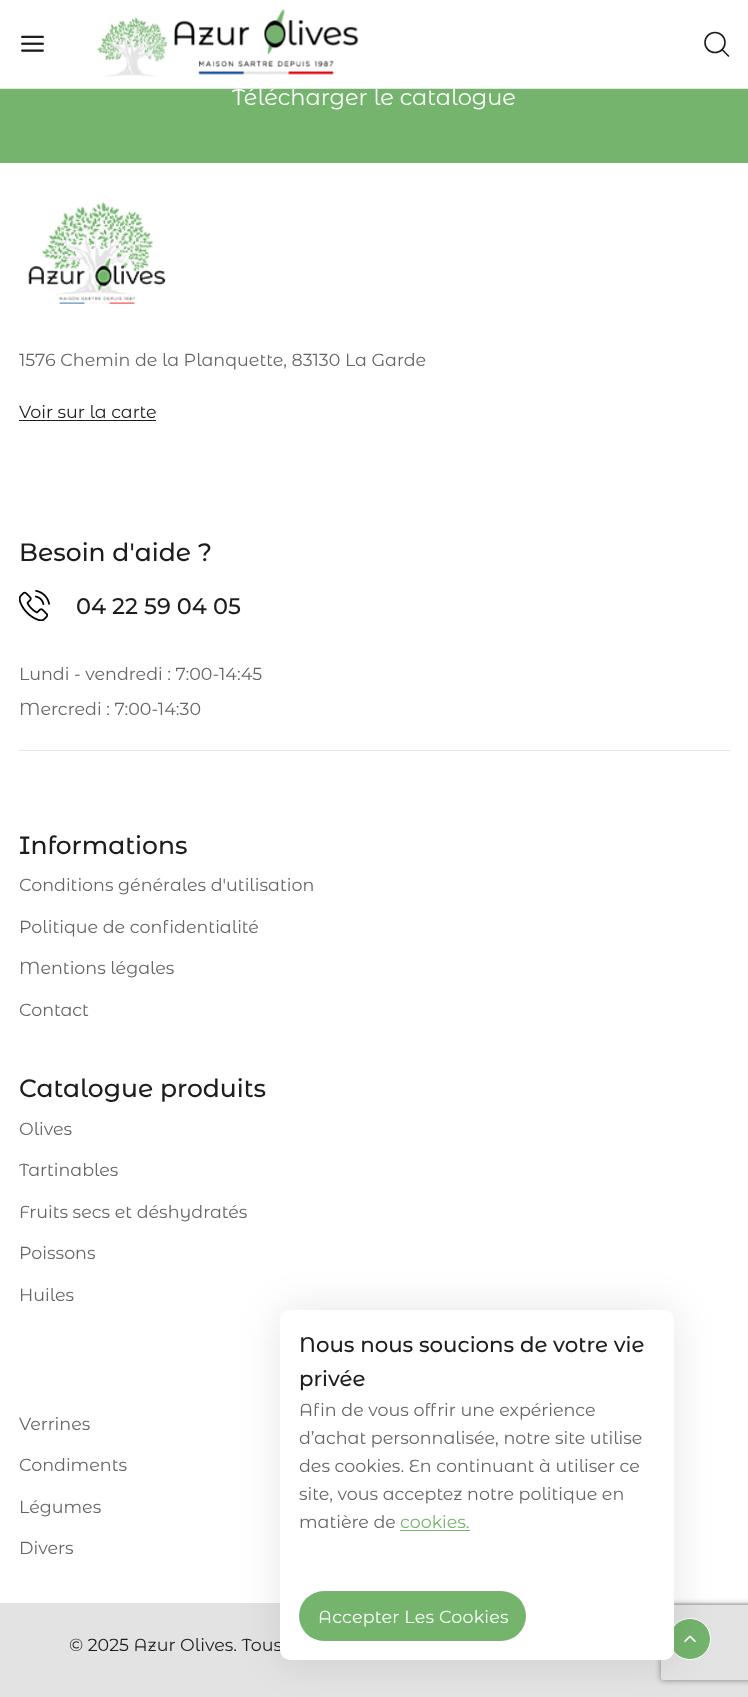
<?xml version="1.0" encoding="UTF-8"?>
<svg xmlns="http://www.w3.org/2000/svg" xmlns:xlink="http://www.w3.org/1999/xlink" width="748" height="1697">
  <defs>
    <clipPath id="clip1"><path d="M 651 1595 h 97 v 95 h -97 z m 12.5 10 h 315 c 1.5 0 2.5 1 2.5 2.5 v 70 c 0 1.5 -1 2.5 -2.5 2.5 h -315 c -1.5 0 -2.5 -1 -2.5 -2.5 v -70 c 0 -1.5 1 -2.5 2.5 -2.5 z" clip-rule="evenodd" /></clipPath>
  </defs>
  <rect width="100%" height="100%" fill="#ffffff" />
  <image x="21" y="35" width="23" height="17" xlink:href="image1.png" />
  <image x="97" y="9" width="262" height="68" xlink:href="image2.png" />
  <circle cx="715" cy="42.5" r="10" fill="none" stroke="#1d1d1b" stroke-width="1.6" />
  <path d="M 722.5 50 l 6 6" fill="none" stroke="#1d1d1b" stroke-width="1.6" stroke-linecap="round" stroke-linejoin="round" />
  <rect y="89" width="748" height="74" fill="#74b46d" />
  <image x="28" y="202" width="138" height="102" xlink:href="image3.png" />
  <rect x="19" y="420" width="137" height="1" fill="#1d1d1b" />
  <image x="19" y="590" width="31" height="31" xlink:href="image4.png" />
  <rect x="19" y="750" width="711" height="1" fill="#e5e5e5" />
  <rect y="1603" width="748" height="94" fill="#e3e3e3" />
  <g clip-path="url(#clip1)">
    <rect x="661" y="1605" width="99" height="75" rx="2.5" fill="#808080" filter="blur(3px)" />
  </g>
  <circle cx="690" cy="1639" r="20.5" fill="#74b46d" stroke="#ffffff" />
  <image x="684" y="1635" width="12" height="7" xlink:href="image5.png" />
  <rect x="280" y="1310" width="394" height="350" rx="10" fill="#000000" fill-opacity="0.1" filter="blur(20px)" />
  <text x="232" y="105" style="font-family: Montserrat Alternates; font-size: 22.5px; fill: #ffffff">Télécharger le catalogue</text>
  <rect y="88" width="748" height="1" fill="#e5e5e5" />
  <text x="19" y="366" style="font-family: Montserrat Alternates; font-size: 17.5px; fill: #666666">1576 Chemin de la Planquette, 83130 La Garde</text>
  <text x="19" y="418" style="font-family: Montserrat Alternates; font-size: 17.5px; fill: #1d1d1b">Voir sur la carte</text>
  <text x="19" y="561" style="font-family: Montserrat Alternates; font-size: 25px; font-weight: 500; fill: #1d1d1b">Besoin d'aide ?</text>
  <text x="76" y="614" style="font-family: Montserrat Alternates; font-size: 22.5px; font-weight: 500; fill: #1d1d1b">04 22 59 04 05</text>
  <text x="19" y="680" style="font-family: Montserrat Alternates; font-size: 17.5px; fill: #666666">Lundi - vendredi : 7:00-14:45</text>
  <text x="19" y="715" style="font-family: Montserrat Alternates; font-size: 17.5px; fill: #666666">Mercredi : 7:00-14:30</text>
  <text x="19" y="854" style="font-family: Montserrat Alternates; font-size: 25px; font-weight: 500; fill: #1d1d1b">Informations</text>
  <text x="19" y="891" style="font-family: Montserrat Alternates; font-size: 17.5px; fill: #666666">Conditions générales d'utilisation</text>
  <text x="19" y="933" style="font-family: Montserrat Alternates; font-size: 17.5px; fill: #666666">Politique de confidentialité</text>
  <text x="19" y="974" style="font-family: Montserrat Alternates; font-size: 17.5px; fill: #666666">Mentions légales</text>
  <text x="19" y="1016" style="font-family: Montserrat Alternates; font-size: 17.5px; fill: #666666">Contact</text>
  <text x="19" y="1097" style="font-family: Montserrat Alternates; font-size: 25px; font-weight: 500; fill: #1d1d1b">Catalogue produits</text>
  <text x="19" y="1135" style="font-family: Montserrat Alternates; font-size: 17.5px; fill: #666666">Olives</text>
  <text x="19" y="1176" style="font-family: Montserrat Alternates; font-size: 17.5px; fill: #666666">Tartinables</text>
  <text x="19" y="1218" style="font-family: Montserrat Alternates; font-size: 17.5px; fill: #666666">Fruits secs et déshydratés</text>
  <text x="19" y="1259" style="font-family: Montserrat Alternates; font-size: 17.5px; fill: #666666">Poissons</text>
  <text x="19" y="1301" style="font-family: Montserrat Alternates; font-size: 17.5px; fill: #666666">Huiles</text>
  <text x="19" y="1430" style="font-family: Montserrat Alternates; font-size: 17.5px; fill: #666666">Verrines</text>
  <text x="19" y="1471" style="font-family: Montserrat Alternates; font-size: 17.5px; fill: #666666">Condiments</text>
  <text x="19" y="1513" style="font-family: Montserrat Alternates; font-size: 17.5px; fill: #666666">Légumes</text>
  <text x="19" y="1554" style="font-family: Montserrat Alternates; font-size: 17.5px; fill: #666666">Divers</text>
  <text x="69" y="1651" style="font-family: Montserrat Alternates; font-size: 17.5px; fill: #1d1d1b">© 2025 Azur Olives. Tous</text>
  <rect x="280" y="1310" width="394" height="350" rx="10" fill="#ffffff" />
  <text x="299" y="1352" style="font-family: Montserrat Alternates; font-size: 21.25px; font-weight: 500; fill: #1d1d1b">Nous nous soucions de votre vie</text>
  <text x="299" y="1386" style="font-family: Montserrat Alternates; font-size: 21.25px; font-weight: 500; fill: #1d1d1b">privée</text>
  <text x="299" y="1416" style="font-family: Montserrat Alternates; font-size: 17.5px; fill: #666666">Afin de vous offrir une expérience</text>
  <text x="299" y="1444" style="font-family: Montserrat Alternates; font-size: 17.5px; fill: #666666">d’achat personnalisée, notre site utilise</text>
  <text x="299" y="1472" style="font-family: Montserrat Alternates; font-size: 17.5px; fill: #666666">des cookies. En continuant à utiliser ce</text>
  <text x="299" y="1500" style="font-family: Montserrat Alternates; font-size: 17.5px; fill: #666666">site, vous acceptez notre politique en</text>
  <text x="299" y="1528" style="font-family: Montserrat Alternates; font-size: 17.5px; fill: #666666">matière de</text>
  <text x="400" y="1528" style="font-family: Montserrat Alternates; font-size: 17.5px; fill: #74b46d">cookies.</text>
  <rect x="400" y="1530" width="70" height="1" fill="#74b46d" />
  <rect x="299" y="1591" width="227" height="50" rx="25" fill="#74b46d" />
  <text x="318" y="1623" style="font-family: Montserrat Alternates; font-size: 17.5px; letter-spacing: 0.2px; fill: #ffffff">Accepter Les Cookies</text>
</svg>
